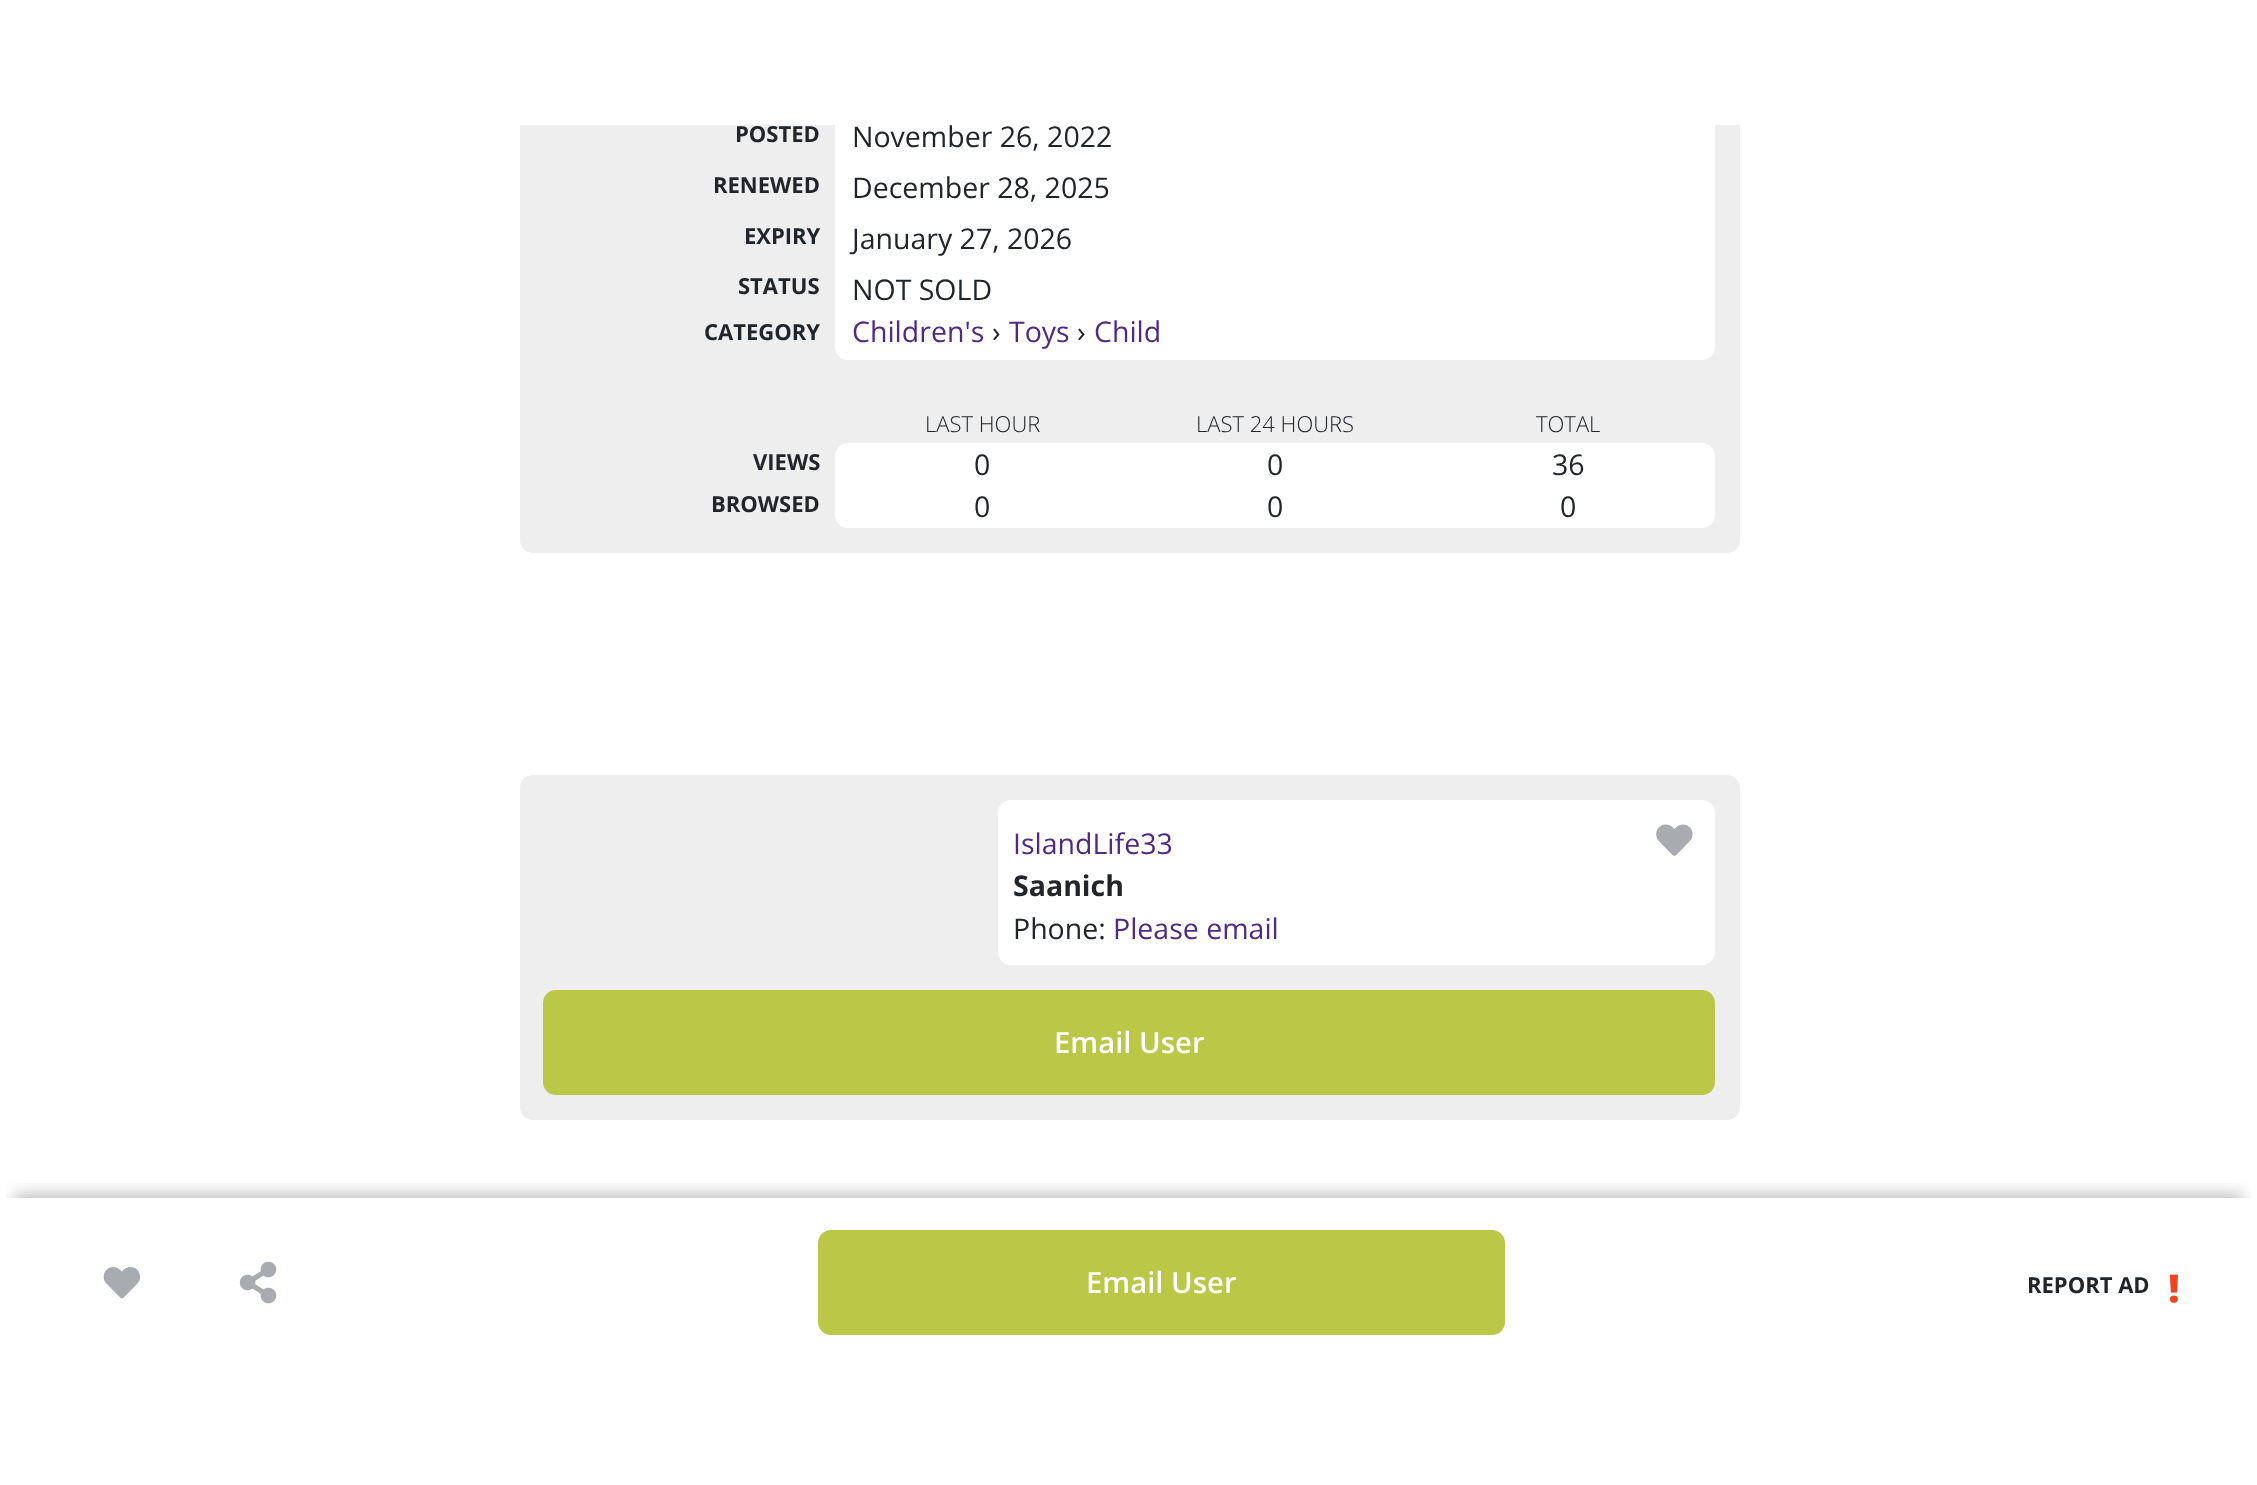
<?xml version="1.0" encoding="UTF-8"?>
<svg xmlns="http://www.w3.org/2000/svg" xmlns:xlink="http://www.w3.org/1999/xlink" width="2257" height="1485">
  <defs>
    <clipPath id="clip1"><rect x="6" y="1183" width="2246" height="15" /></clipPath>
  </defs>
  <rect width="100%" height="100%" fill="#ffffff" />
  <rect x="520" y="33" width="1220" height="520" rx="13" fill="#eeeeee" />
  <rect x="520" y="33" width="1220" height="92" fill="#ffffff" />
  <rect x="835" y="125" width="880" height="185" fill="#ffffff" />
  <path d="M 835 310 h 880 v 37 c 0 7 -6 13 -13 13 h -854 c -7 0 -13 -6 -13 -13 z" fill="#ffffff" />
  <path d="M 848 443 h 854 c 7 0 13 6 13 13 v 29 h -880 v -29 c 0 -7 6 -13 13 -13 z" fill="#ffffff" />
  <path d="M 835 485 h 880 v 30 c 0 7 -6 13 -13 13 h -854 c -7 0 -13 -6 -13 -13 z" fill="#ffffff" />
  <rect x="520" y="775" width="1220" height="345" rx="13" fill="#eeeeee" />
  <rect x="998" y="800" width="717" height="165" rx="13" fill="#ffffff" />
  <image x="1656" y="824" width="37" height="32" xlink:href="image1.png" />
  <rect x="543" y="990" width="1172" height="105" rx="13" fill="#bbc746" />
  <g clip-path="url(#clip1)">
    <rect x="15" y="1193" width="2228" height="257" fill="#000000" fill-opacity="0.24" filter="blur(7.5px)" />
  </g>
  <image x="103" y="1267" width="38" height="32" xlink:href="image2.png" />
  <image x="239" y="1261" width="38" height="43" xlink:href="image3.png" />
  <rect x="818" y="1230" width="687" height="105" rx="13" fill="#bbc746" />
  <image x="2169" y="1274" width="9" height="29" xlink:href="image4.png" />
  <text x="735" y="142" style="font-family: Open Sans; font-size: 22px; font-weight: bold; fill: #212529">POSTED</text>
  <text x="852" y="147" style="font-family: Open Sans; font-size: 28.5px; fill: #212529">November 26, 2022</text>
  <text x="713" y="193" style="font-family: Open Sans; font-size: 22px; font-weight: bold; fill: #212529">RENEWED</text>
  <text x="852" y="198" style="font-family: Open Sans; font-size: 28.5px; fill: #212529">December 28, 2025</text>
  <text x="744" y="244" style="font-family: Open Sans; font-size: 22px; font-weight: bold; fill: #212529">EXPIRY</text>
  <text x="852" y="249" style="font-family: Open Sans; font-size: 28.5px; fill: #212529">January 27, 2026</text>
  <text x="738" y="294" style="font-family: Open Sans; font-size: 22px; font-weight: bold; fill: #212529">STATUS</text>
  <text x="852" y="300" style="font-family: Open Sans; font-size: 28.5px; fill: #212529">NOT SOLD</text>
  <text x="704" y="340" style="font-family: Open Sans; font-size: 22px; font-weight: bold; fill: #212529">CATEGORY</text>
  <text x="852" y="342" style="font-family: Open Sans; font-size: 28.5px; fill: #4f2984">Children's</text>
  <text x="992" y="342" style="font-family: Open Sans; font-size: 28.5px; fill: #212529">›</text>
  <text x="1009" y="342" style="font-family: Open Sans; font-size: 28.5px; fill: #4f2984">Toys</text>
  <text x="1077" y="342" style="font-family: Open Sans; font-size: 28.5px; fill: #212529">›</text>
  <text x="1094" y="342" style="font-family: Open Sans; font-size: 28.5px; fill: #4f2984">Child</text>
  <text x="925" y="432" style="font-family: Open Sans; font-size: 22px; font-weight: 300; fill: #212529">LAST HOUR</text>
  <text x="1196" y="432" style="font-family: Open Sans; font-size: 22px; font-weight: 300; fill: #212529">LAST 24 HOURS</text>
  <text x="1536" y="432" style="font-family: Open Sans; font-size: 22px; font-weight: 300; fill: #212529">TOTAL</text>
  <text x="753" y="470" style="font-family: Open Sans; font-size: 22px; font-weight: bold; fill: #212529">VIEWS</text>
  <text x="974" y="475" style="font-family: Open Sans; font-size: 28.5px; fill: #212529">0</text>
  <text x="1267" y="475" style="font-family: Open Sans; font-size: 28.5px; fill: #212529">0</text>
  <text x="1552" y="475" style="font-family: Open Sans; font-size: 28.5px; fill: #212529">36</text>
  <text x="711" y="512" style="font-family: Open Sans; font-size: 22px; font-weight: bold; fill: #212529">BROWSED</text>
  <text x="974" y="517" style="font-family: Open Sans; font-size: 28.5px; fill: #212529">0</text>
  <text x="1267" y="517" style="font-family: Open Sans; font-size: 28.5px; fill: #212529">0</text>
  <text x="1560" y="517" style="font-family: Open Sans; font-size: 28.5px; fill: #212529">0</text>
  <text x="1013" y="854" style="font-family: Open Sans; font-size: 28.5px; fill: #4f2984">IslandLife33</text>
  <text x="1013" y="896" style="font-family: Open Sans; font-size: 28.5px; font-weight: bold; fill: #212529">Saanich</text>
  <text x="1013" y="939" style="font-family: Open Sans; font-size: 28.5px; fill: #212529">Phone:</text>
  <text x="1113" y="939" style="font-family: Open Sans; font-size: 28.5px; fill: #4f2984">Please email</text>
  <text x="1054" y="1053" style="font-family: Open Sans; font-size: 29.25px; font-weight: 600; fill: #ffffff">Email User</text>
  <text x="1086" y="1293" style="font-family: Open Sans; font-size: 29.25px; font-weight: 600; fill: #ffffff">Email User</text>
  <text x="2027" y="1293" style="font-family: Open Sans; font-size: 22px; font-weight: bold; fill: #212529">REPORT AD</text>
</svg>
